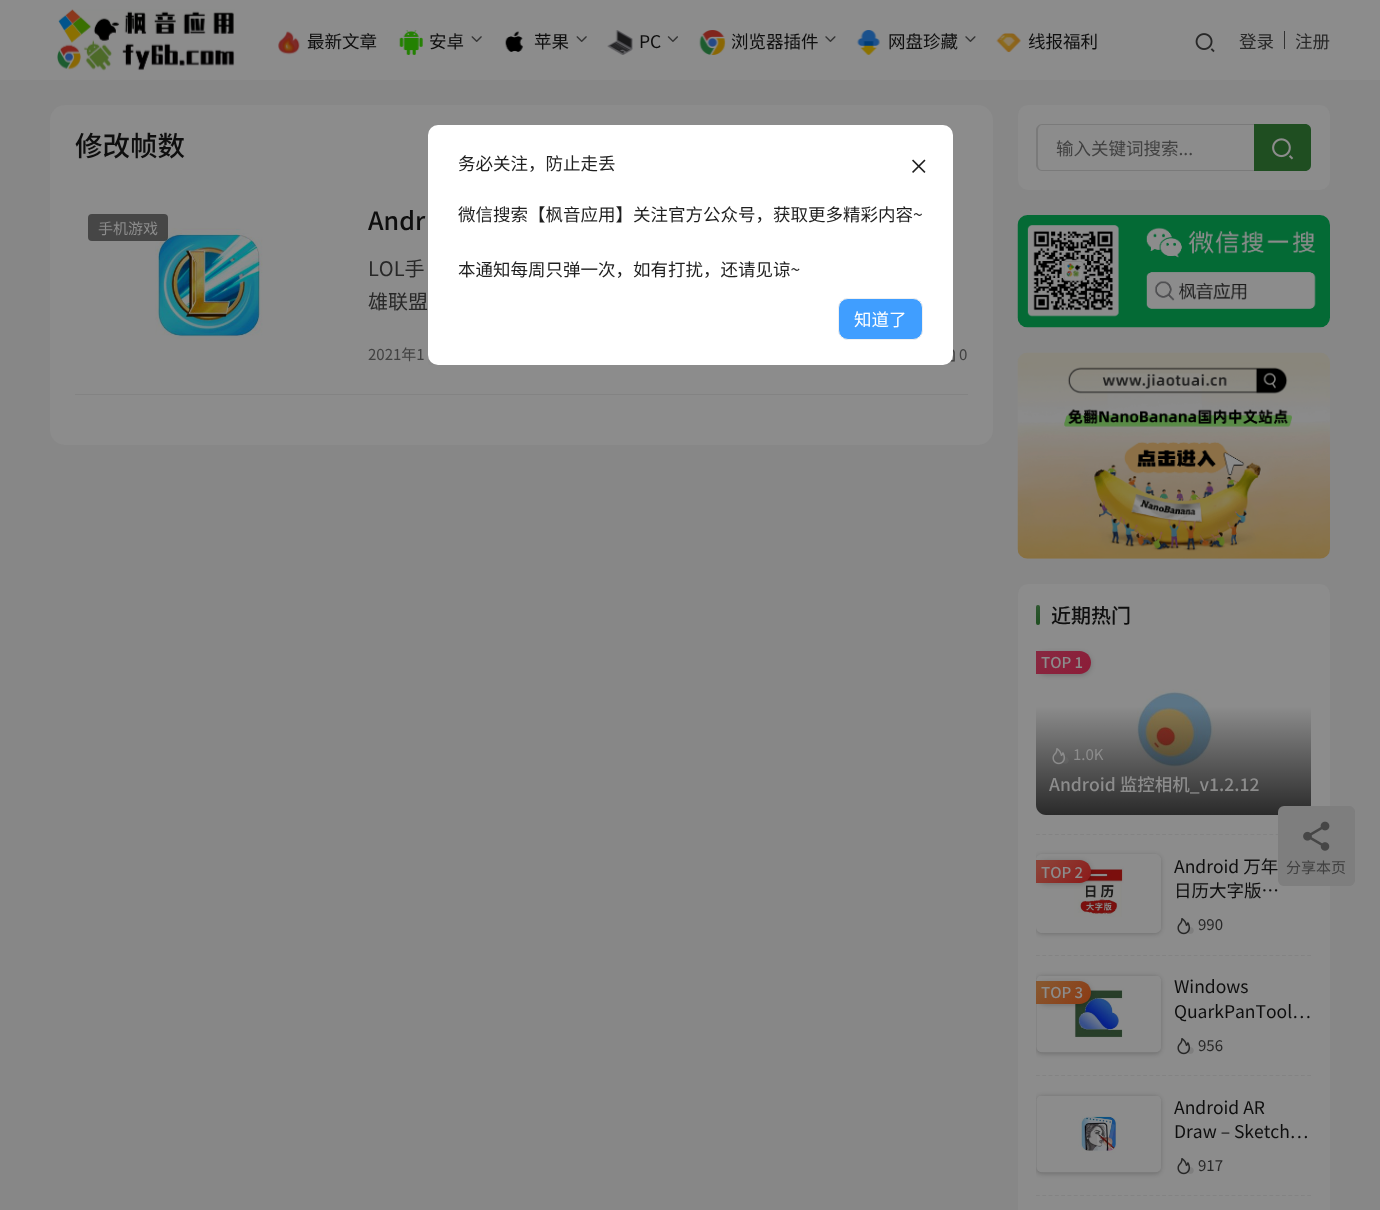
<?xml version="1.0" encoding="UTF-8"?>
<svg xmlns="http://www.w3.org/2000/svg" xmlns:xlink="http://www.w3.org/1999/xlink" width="1380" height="1210">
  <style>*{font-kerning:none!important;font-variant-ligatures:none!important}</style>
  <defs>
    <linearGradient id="g1" gradientUnits="userSpaceOnUse" x1="1038" y1="605" x2="1038" y2="625"><stop offset="0" stop-color="#8c8c8c" stop-opacity="0.15" /><stop offset="1" stop-color="#8c8c8c" stop-opacity="0" /></linearGradient>
    <clipPath id="clip1"><rect x="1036" y="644" width="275" height="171" rx="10" /></clipPath>
    <linearGradient id="g2" gradientUnits="userSpaceOnUse" x1="1044" y1="643" x2="1083" y2="682"><stop offset="0.1" stop-color="#882840" /><stop offset="1" stop-color="#8c1c38" /></linearGradient>
    <linearGradient id="g3" gradientUnits="userSpaceOnUse" x1="1174" y1="706" x2="1174" y2="815"><stop offset="0" stop-color="#000000" stop-opacity="0" /><stop offset="1" stop-color="#000000" stop-opacity="0.7" /></linearGradient>
    <clipPath id="clip2"><rect x="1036" y="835" width="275" height="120" /></clipPath>
    <clipPath id="clip3"><path d="M 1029 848 h 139 v 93 h -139 z m 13 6 h 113 c 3.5 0 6 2.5 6 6 v 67 c 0 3.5 -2.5 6 -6 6 h -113 c -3.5 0 -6 -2.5 -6 -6 v -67 c 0 -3.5 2.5 -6 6 -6 z" clip-rule="evenodd" /></clipPath>
    <linearGradient id="g4" gradientUnits="userSpaceOnUse" x1="1044" y1="852" x2="1083" y2="891"><stop offset="0.1" stop-color="#8c4338" /><stop offset="1" stop-color="#8c1919" /></linearGradient>
    <clipPath id="clip4"><rect x="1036" y="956" width="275" height="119" /></clipPath>
    <linearGradient id="g5" gradientUnits="userSpaceOnUse" x1="1044" y1="973" x2="1083" y2="1012"><stop offset="0.1" stop-color="#87572f" /><stop offset="1" stop-color="#8c3a13" /></linearGradient>
    <clipPath id="clip5"><rect x="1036" y="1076" width="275" height="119" /></clipPath>
    <clipPath id="clip6"><rect x="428" y="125" width="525" height="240" /></clipPath>
  </defs>
  <rect width="100%" height="100%" fill="#878787" />
  <rect width="1380" height="80" fill="#8c8c8c" />
  <image x="57" y="9" width="178" height="62" xlink:href="image1.png" />
  <image x="278" y="31" width="22" height="24" xlink:href="image2.png" />
  <image x="399" y="30" width="24" height="25" xlink:href="image3.png" />
  <image x="471" y="36" width="11" height="6" xlink:href="image4.png" />
  <image x="505" y="31" width="19" height="21" xlink:href="image5.png" />
  <image x="576" y="36" width="11" height="6" xlink:href="image4.png" />
  <image x="607" y="30" width="26" height="25" xlink:href="image6.png" />
  <image x="667" y="36" width="11" height="6" xlink:href="image7.png" />
  <image x="699" y="30" width="27" height="25" xlink:href="image8.png" />
  <image x="825" y="36" width="11" height="6" xlink:href="image9.png" />
  <image x="856" y="30" width="24" height="25" xlink:href="image10.png" />
  <image x="965" y="36" width="11" height="6" xlink:href="image9.png" />
  <image x="996" y="33" width="25" height="20" xlink:href="image11.png" />
  <image x="1195" y="33" width="20" height="20" xlink:href="image12.png" />
  <rect x="1284" y="31" width="1" height="18" fill="#323232" />
  <rect x="50" y="105" width="943" height="340" rx="15" fill="#8c8c8c" />
  <rect x="75" y="394" width="893" height="1" fill="#838383" />
  <image x="155" y="228" width="108" height="112" xlink:href="image13.png" />
  <rect x="88" y="214" width="80" height="27" rx="4" fill="#000000" fill-opacity="0.5" />
  <image x="950" y="349" width="5" height="13" xlink:href="image14.png" />
  <rect x="1018" y="105" width="312" height="85" rx="10" fill="#8c8c8c" />
  <path d="M 1042 124 h 212 v 47 h -212 c -3 0 -6 -3 -6 -6 v -35 c 0 -3 3 -6 6 -6 z m 0 1 h 212 v 45 h -212 c -2 0 -4 -2 -4 -5 v -35 c 0 -3 2 -5 4 -5 z" fill="#7a7a7a" fill-rule="evenodd" />
  <path d="M 1254 124 h 51 c 3.5 0 6 2.5 6 6 v 35 c 0 3.5 -2.5 6 -6 6 h -51 z" fill="#1f4e21" />
  <image x="1272" y="138" width="22" height="22" xlink:href="image15.png" />
  <image x="1017" y="215" width="313" height="113" xlink:href="image16.png" />
  <image x="1017" y="352" width="313" height="207" xlink:href="image17.png" />
  <rect x="1018" y="584" width="312" height="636" rx="10" fill="#8c8c8c" />
  <rect x="1036" y="605" width="4" height="20" rx="2" fill="#1f4e21" />
  <rect x="1036" y="605" width="4" height="20" rx="2" fill="url(#g1)" />
  <image x="1036" y="654" width="179" height="151" xlink:href="image18.png" />
  <g clip-path="url(#clip1)">
    <rect x="1036" y="653" width="55" height="22" rx="11" fill="#000000" fill-opacity="0.2" filter="blur(2.5px)" />
  </g>
  <path d="M 1036 651 h 43.5 c 6.5 0 11.5 5 11.5 11.5 c 0 6.5 -5 11.5 -11.5 11.5 h -43.5 z" fill="url(#g2)" />
  <path d="M 1036 706 h 275 v 99 c 0 5.5 -4.5 10 -10 10 h -255 c -5.5 0 -10 -4.5 -10 -10 z" fill="url(#g3)" />
  <image x="1052" y="748" width="17" height="17" xlink:href="image19.png" />
  <path d="M 1036 834.5 h 275" fill="none" stroke="#838383" stroke-width="1.2" stroke-dasharray="3.75 2.56" />
  <path d="M 1036 955.5 h 275" fill="none" stroke="#838383" stroke-width="1.2" stroke-dasharray="3.75 2.56" />
  <g clip-path="url(#clip2)">
    <g clip-path="url(#clip3)">
      <rect x="1036" y="855" width="125" height="79" rx="6" fill="#000000" fill-opacity="0.2" filter="blur(2px)" />
    </g>
  </g>
  <image x="1036" y="858" width="125" height="75" xlink:href="image20.png" />
  <image x="1177" y="918" width="17" height="17" xlink:href="image21.png" />
  <g clip-path="url(#clip2)">
    <rect x="1036" y="861" width="55" height="23" rx="11.5" fill="#000000" fill-opacity="0.2" filter="blur(2.5px)" />
  </g>
  <path d="M 1036 860 h 43.5 c 6.5 0 11.5 5 11.5 11.5 c 0 6.5 -5 11.5 -11.5 11.5 h -43.5 z" fill="url(#g4)" />
  <path d="M 1036 1075.5 h 275" fill="none" stroke="#838383" stroke-width="1.2" stroke-dasharray="3.75 2.56" />
  <g clip-path="url(#clip4)">
    <rect x="1036" y="976" width="125" height="78" rx="6" fill="#000000" fill-opacity="0.2" filter="blur(2px)" />
  </g>
  <image x="1036" y="976" width="125" height="77" xlink:href="image22.png" />
  <image x="1177" y="1038" width="17" height="17" xlink:href="image21.png" />
  <g clip-path="url(#clip4)">
    <rect x="1036" y="983" width="55" height="22" rx="11" fill="#000000" fill-opacity="0.2" filter="blur(2.5px)" />
  </g>
  <path d="M 1036 981 h 43.5 c 6.5 0 11.5 5 11.5 11.5 c 0 6.5 -5 11.5 -11.5 11.5 h -43.5 z" fill="url(#g5)" />
  <path d="M 1036 1195.5 h 275" fill="none" stroke="#838383" stroke-width="1.2" stroke-dasharray="3.75 2.56" />
  <g clip-path="url(#clip5)">
    <rect x="1036" y="1096" width="125" height="78" rx="6" fill="#000000" fill-opacity="0.2" filter="blur(2px)" />
  </g>
  <image x="1036" y="1096" width="125" height="77" xlink:href="image23.png" />
  <image x="1177" y="1158" width="17" height="17" xlink:href="image21.png" />
  <g clip-path="url(#clip6)">
    <rect x="433" y="134" width="515" height="230" rx="5" fill="#000000" fill-opacity="0.12" filter="blur(4px)" />
  </g>
  <rect x="428" y="125" width="525" height="240" rx="10" fill="#ffffff" />
  <image x="912" y="159" width="14" height="14" xlink:href="image24.png" />
  <rect x="838" y="298" width="85" height="42" rx="10" fill="#f0f0f0" filter="blur(0.5px)" />
  <rect x="838.5" y="298.5" width="84" height="41" rx="9.5" fill="#409eff" stroke="#f0f0f0" />
  <rect x="1278" y="806" width="77" height="80" rx="6" fill="#878787" />
  <rect x="1278" y="806" width="77" height="80" rx="6" fill="#0e0e0e" fill-opacity="0.07" />
  <image x="1303" y="821" width="27" height="30" xlink:href="image25.png" />
  <text x="307" y="48" style="font-family: Noto Sans CJK SC; font-size: 17.5px; fill: #0e0e0e">最新文章</text>
  <text x="429" y="48" style="font-family: Noto Sans CJK SC; font-size: 17.5px; fill: #0e0e0e">安卓</text>
  <text x="534" y="48" style="font-family: Noto Sans CJK SC; font-size: 17.5px; fill: #0e0e0e">苹果</text>
  <text x="639" y="48" style="font-family: Noto Sans CJK SC; font-size: 17.5px; fill: #0e0e0e">PC</text>
  <text x="731" y="48" style="font-family: Noto Sans CJK SC; font-size: 17.5px; fill: #0e0e0e">浏览器插件</text>
  <text x="888" y="48" style="font-family: Noto Sans CJK SC; font-size: 17.5px; fill: #0e0e0e">网盘珍藏</text>
  <text x="1028" y="48" style="font-family: Noto Sans CJK SC; font-size: 17.5px; fill: #0e0e0e">线报福利</text>
  <text x="1239" y="48" style="font-family: Noto Sans CJK SC; font-size: 17.5px; fill: #282828">登录</text>
  <text x="1295" y="48" style="font-family: Noto Sans CJK SC; font-size: 17.5px; fill: #282828">注册</text>
  <text x="75" y="156" style="font-family: Noto Sans CJK SC; font-size: 27.5px; font-weight: 500; fill: #0e0e0e">修改帧数</text>
  <text x="98" y="234" style="font-family: Noto Sans CJK SC; font-size: 15px; fill: #8c8c8c">手机游戏</text>
  <text x="368" y="230" style="font-family: Noto Sans CJK SC; font-size: 25px; font-weight: 500; fill: #0e0e0e">Andr</text>
  <text x="368" y="276" style="font-family: Noto Sans CJK SC; font-size: 20px; fill: #282828">LOL手</text>
  <text x="368" y="309" style="font-family: Noto Sans CJK SC; font-size: 20px; fill: #282828">雄联盟</text>
  <text x="368" y="360" style="font-family: Noto Sans CJK SC; font-size: 15px; fill: #414141">2021年1</text>
  <text x="959" y="360" style="font-family: Noto Sans CJK SC; font-size: 15px; fill: #414141">0</text>
  <text x="1056" y="155" style="font-family: Noto Sans CJK SC; font-size: 17.5px; fill: #414141">输入关键词搜索...</text>
  <text x="1051" y="623" style="font-family: Noto Sans CJK SC; font-size: 20px; font-weight: 500; fill: #0e0e0e">近期热门</text>
  <text x="1041" y="668" style="font-family: Noto Sans CJK SC; font-size: 15px; font-weight: 500; fill: #8c8c8c">TOP 1</text>
  <text x="1073" y="760" style="font-family: Noto Sans CJK SC; font-size: 15px; fill: #8c8c8c">1.0K</text>
  <text x="1049" y="791" style="font-family: Noto Sans CJK SC; font-size: 17.5px; font-weight: 500; fill: #8c8c8c">Android 监控相机_v1.2.12</text>
  <text x="1174" y="873" style="font-family: Noto Sans CJK SC; font-size: 17.5px; fill: #0e0e0e">Android 万年</text>
  <text x="1174" y="897" style="font-family: Noto Sans CJK SC; font-size: 17.5px; fill: #0e0e0e">日历大字版…</text>
  <text x="1198" y="930" style="font-family: Noto Sans CJK SC; font-size: 15px; fill: #282828">990</text>
  <text x="1041" y="878" style="font-family: Noto Sans CJK SC; font-size: 15px; font-weight: 500; fill: #8c8c8c">TOP 2</text>
  <text x="1174" y="993" style="font-family: Noto Sans CJK SC; font-size: 17.5px; fill: #0e0e0e">Windows</text>
  <text x="1174" y="1018" style="font-family: Noto Sans CJK SC; font-size: 17.5px; fill: #0e0e0e">QuarkPanTool…</text>
  <text x="1198" y="1051" style="font-family: Noto Sans CJK SC; font-size: 15px; fill: #282828">956</text>
  <text x="1041" y="998" style="font-family: Noto Sans CJK SC; font-size: 15px; font-weight: 500; fill: #8c8c8c">TOP 3</text>
  <text x="1174" y="1114" style="font-family: Noto Sans CJK SC; font-size: 17.5px; fill: #0e0e0e">Android AR</text>
  <text x="1174" y="1138" style="font-family: Noto Sans CJK SC; font-size: 17.5px; fill: #0e0e0e">Draw – Sketch…</text>
  <text x="1198" y="1171" style="font-family: Noto Sans CJK SC; font-size: 15px; fill: #282828">917</text>
  <text x="458" y="170" style="font-family: Noto Sans CJK SC; font-size: 17.5px; fill: #1f1f1f">务必关注，防止走丢</text>
  <text x="458" y="221" style="font-family: Noto Sans CJK SC; font-size: 17.5px; fill: #1f1f1f">微信搜索【枫音应用】关注官方公众号，获取更多精彩内容~</text>
  <text x="458" y="276" style="font-family: Noto Sans CJK SC; font-size: 17.5px; fill: #1f1f1f">本通知每周只弹一次，如有打扰，还请见谅~</text>
  <text x="854" y="326" style="font-family: Noto Sans CJK SC; font-size: 17.5px; fill: #ffffff">知道了</text>
  <text x="1286" y="873" style="font-family: Noto Sans CJK SC; font-size: 15px; fill: #414141">分享本页</text>
</svg>
